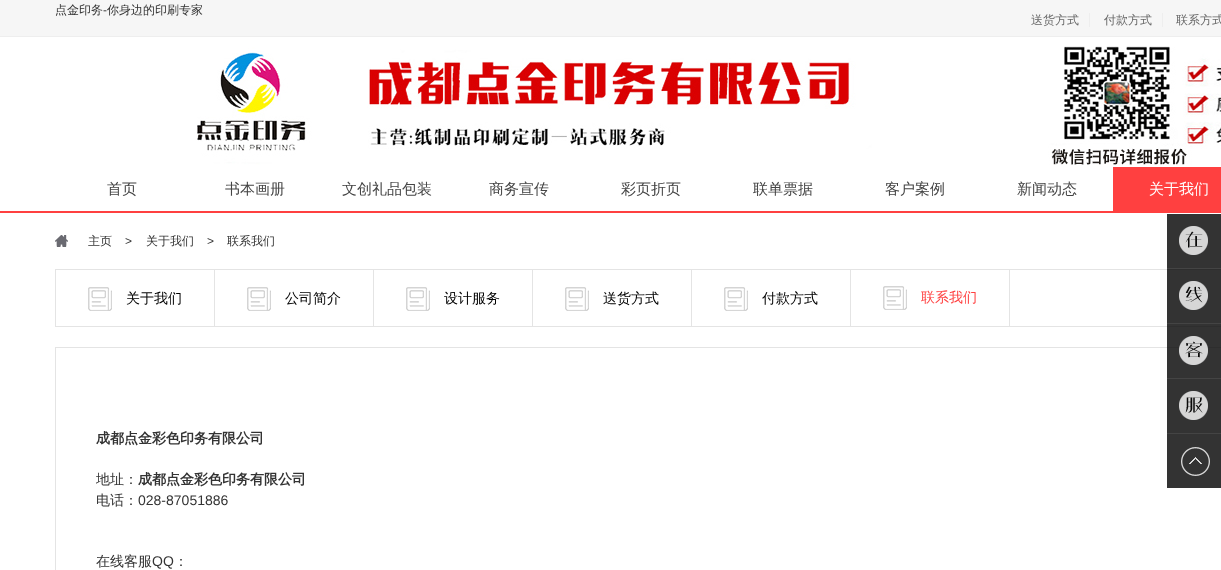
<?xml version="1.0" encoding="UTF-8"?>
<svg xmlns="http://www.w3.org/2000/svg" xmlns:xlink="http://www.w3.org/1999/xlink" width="1221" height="570">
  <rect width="100%" height="100%" fill="#ffffff" />
  <rect x="1167" y="270" width="54" height="53" fill="#333333" />
  <rect width="1221" height="36" fill="#f6f6f6" />
  <rect y="36" width="1221" height="1" fill="#eeeeee" />
  <rect x="1089" y="13" width="1" height="14" fill="#eeeeee" />
  <rect x="1162" y="13" width="1" height="14" fill="#eeeeee" />
  <image x="197" y="46" width="1024" height="119" xlink:href="image1.png" />
  <rect y="211" width="1221" height="2" fill="#ff4040" />
  <rect x="1113" y="167" width="108" height="44" fill="#ff4040" />
  <image x="55" y="235" width="13" height="12" xlink:href="image2.png" />
  <rect x="1167" y="268" width="54" height="1" fill="#444444" />
  <rect x="1167" y="214" width="54" height="54" fill="#333333" />
  <image x="1179" y="226" width="29" height="29" xlink:href="image3.png" />
  <rect x="1167" y="323" width="54" height="1" fill="#444444" />
  <image x="1179" y="281" width="29" height="29" xlink:href="image4.png" />
  <rect x="55.5" y="347.5" width="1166" height="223" fill="none" stroke="#e4e4e4" />
  <rect x="1167" y="378" width="54" height="1" fill="#444444" />
  <rect x="56" y="326" width="1165" height="1" fill="#e4e4e4" />
  <rect x="1167" y="324" width="54" height="54" fill="#000000" fill-opacity="0.8" />
  <image x="1179" y="336" width="29" height="29" xlink:href="image5.png" />
  <rect x="1167" y="433" width="54" height="1" fill="#444444" />
  <rect x="1167" y="379" width="54" height="54" fill="#333333" />
  <image x="1179" y="391" width="29" height="29" xlink:href="image6.png" />
  <rect x="1167" y="434" width="54" height="54" fill="#333333" />
  <image x="1181" y="447" width="29" height="29" xlink:href="image7.png" />
  <rect x="55" y="269" width="1112" height="1" fill="#e4e4e4" />
  <rect x="1167" y="269" width="54" height="1" fill="#2e2e2e" />
  <rect x="55" y="269" width="1" height="58" fill="#e4e4e4" />
  <rect x="214" y="270" width="1" height="56" fill="#e4e4e4" />
  <image x="88" y="287" width="24" height="24" xlink:href="image8.png" />
  <rect x="373" y="270" width="1" height="56" fill="#e4e4e4" />
  <image x="247" y="287" width="24" height="24" xlink:href="image8.png" />
  <rect x="532" y="270" width="1" height="56" fill="#e4e4e4" />
  <image x="406" y="287" width="24" height="24" xlink:href="image8.png" />
  <rect x="691" y="270" width="1" height="56" fill="#e4e4e4" />
  <image x="565" y="287" width="24" height="24" xlink:href="image8.png" />
  <rect x="850" y="270" width="1" height="56" fill="#e4e4e4" />
  <image x="724" y="287" width="24" height="24" xlink:href="image8.png" />
  <rect x="1009" y="270" width="1" height="56" fill="#e4e4e4" />
  <image x="883" y="286" width="24" height="24" xlink:href="image8.png" />
  <text x="55" y="14" style="font-family: WenQuanYi Zen Hei; font-size: 12px; font-weight: 500; fill: #333333">点金印务</text>
  <text x="103" y="14" style="font-family: Liberation Sans; font-size: 12px; fill: #333333">-</text>
  <text x="107" y="14" style="font-family: WenQuanYi Zen Hei; font-size: 12px; font-weight: 500; fill: #333333">你身边的印刷专家</text>
  <text x="1031" y="24" style="font-family: WenQuanYi Zen Hei; font-size: 12px; font-weight: 500; fill: #686868">送货方式</text>
  <text x="1104" y="24" style="font-family: WenQuanYi Zen Hei; font-size: 12px; font-weight: 500; fill: #686868">付款方式</text>
  <text x="1176" y="24" style="font-family: WenQuanYi Zen Hei; font-size: 12px; font-weight: 500; fill: #686868">联系方式</text>
  <text x="107" y="194" style="font-family: WenQuanYi Zen Hei; font-size: 15px; font-weight: 500; fill: #444444">首页</text>
  <text x="225" y="194" style="font-family: WenQuanYi Zen Hei; font-size: 15px; font-weight: 500; fill: #444444">书本画册</text>
  <text x="342" y="194" style="font-family: WenQuanYi Zen Hei; font-size: 15px; font-weight: 500; fill: #444444">文创礼品包装</text>
  <text x="489" y="194" style="font-family: WenQuanYi Zen Hei; font-size: 15px; font-weight: 500; fill: #444444">商务宣传</text>
  <text x="621" y="194" style="font-family: WenQuanYi Zen Hei; font-size: 15px; font-weight: 500; fill: #444444">彩页折页</text>
  <text x="753" y="194" style="font-family: WenQuanYi Zen Hei; font-size: 15px; font-weight: 500; fill: #444444">联单票据</text>
  <text x="885" y="194" style="font-family: WenQuanYi Zen Hei; font-size: 15px; font-weight: 500; fill: #444444">客户案例</text>
  <text x="1017" y="194" style="font-family: WenQuanYi Zen Hei; font-size: 15px; font-weight: 500; fill: #444444">新闻动态</text>
  <text x="1149" y="194" style="font-family: WenQuanYi Zen Hei; font-size: 15px; font-weight: 500; fill: #ffffff">关于我们</text>
  <text x="88" y="245" style="font-family: WenQuanYi Zen Hei; font-size: 12px; font-weight: 500; fill: #333333">主页</text>
  <text x="125" y="245" style="font-family: Liberation Sans; font-size: 12px; fill: #333333">&gt;</text>
  <text x="146" y="245" style="font-family: WenQuanYi Zen Hei; font-size: 12px; font-weight: 500; fill: #333333">关于我们</text>
  <text x="207" y="245" style="font-family: Liberation Sans; font-size: 12px; fill: #333333">&gt;</text>
  <text x="227" y="245" style="font-family: WenQuanYi Zen Hei; font-size: 12px; font-weight: 500; fill: #333333">联系我们</text>
  <text x="126" y="303" style="font-family: WenQuanYi Zen Hei; font-size: 14px; font-weight: 500; fill: #000000">关于我们</text>
  <text x="285" y="303" style="font-family: WenQuanYi Zen Hei; font-size: 14px; font-weight: 500; fill: #000000">公司简介</text>
  <text x="444" y="303" style="font-family: WenQuanYi Zen Hei; font-size: 14px; font-weight: 500; fill: #000000">设计服务</text>
  <text x="603" y="303" style="font-family: WenQuanYi Zen Hei; font-size: 14px; font-weight: 500; fill: #000000">送货方式</text>
  <text x="762" y="303" style="font-family: WenQuanYi Zen Hei; font-size: 14px; font-weight: 500; fill: #000000">付款方式</text>
  <text x="921" y="302" style="font-family: WenQuanYi Zen Hei; font-size: 14px; font-weight: 500; fill: #ff4040">联系我们</text>
  <text x="96" y="443" style="font-family: WenQuanYi Zen Hei; font-size: 14px; font-weight: bold; fill: #333333">成都点金彩色印务有限公司</text>
  <text x="96" y="484" style="font-family: WenQuanYi Zen Hei; font-size: 14px; font-weight: 500; fill: #333333">地址：</text>
  <text x="138" y="484" style="font-family: WenQuanYi Zen Hei; font-size: 14px; font-weight: bold; fill: #333333">成都点金彩色印务有限公司</text>
  <text x="96" y="505" style="font-family: WenQuanYi Zen Hei; font-size: 14px; font-weight: 500; fill: #333333">电话：</text>
  <text x="138" y="505" style="font-family: Liberation Sans; font-size: 14px; fill: #333333">028-87051886</text>
  <text x="96" y="566" style="font-family: WenQuanYi Zen Hei; font-size: 14px; font-weight: 500; fill: #333333">在线客服</text>
  <text x="152" y="566" style="font-family: Liberation Sans; font-size: 14px; fill: #333333">QQ</text>
  <text x="174" y="566" style="font-family: WenQuanYi Zen Hei; font-size: 14px; font-weight: 500; fill: #333333">：</text>
</svg>
